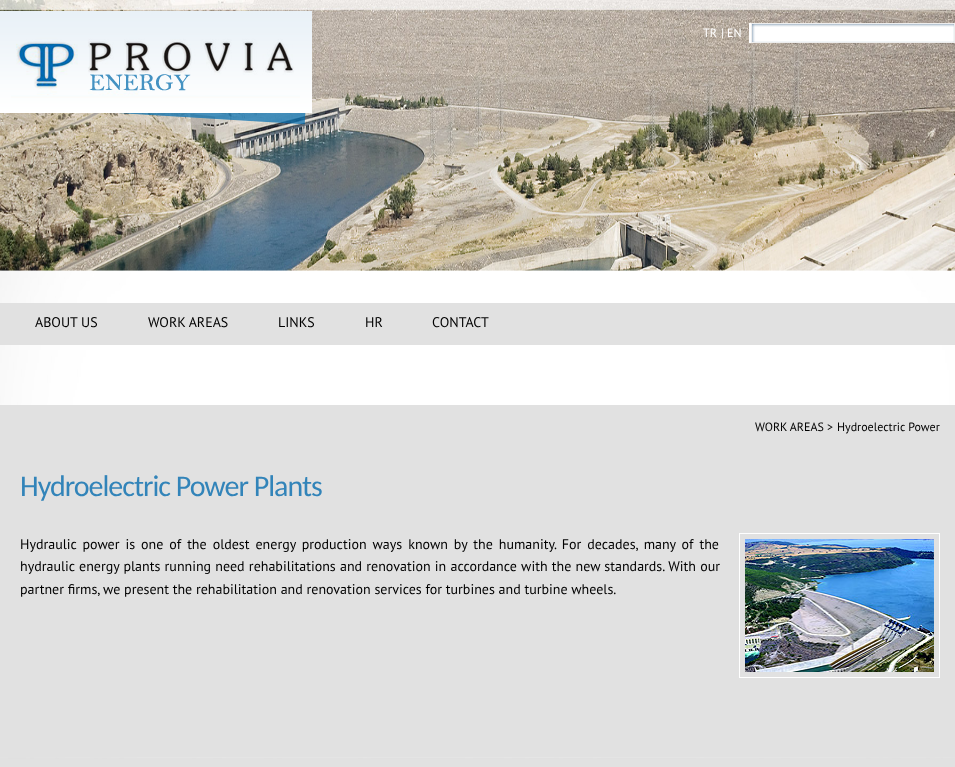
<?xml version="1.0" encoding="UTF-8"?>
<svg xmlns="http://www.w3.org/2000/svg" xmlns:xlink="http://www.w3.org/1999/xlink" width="955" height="767">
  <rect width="100%" height="100%" fill="#ffffff" />
  <image x="0" y="0" width="955" height="767" xlink:href="image1.png" />
  <image x="0" y="11" width="312" height="114" xlink:href="image2.png" />
  <rect x="749" y="23" width="206" height="20" fill="#ffffff" />
  <image x="751" y="23" width="204" height="20" xlink:href="image3.png" />
  <rect y="303" width="955" height="42" fill="#e1e1e1" />
  <rect y="405" width="955" height="352" fill="#e1e1e1" />
  <rect x="739.5" y="533.5" width="200" height="144" fill="none" stroke="#ffffff" />
  <image x="745" y="539" width="189" height="133" xlink:href="image4.png" />
  <text x="703" y="37" style="font-family: PT Sans; font-size: 12px; fill: #ffffff">TR</text>
  <text x="721" y="37" style="font-family: PT Sans; font-size: 12px; fill: #ffffff">| EN</text>
  <text x="35" y="327" style="font-family: PT Sans; font-size: 14px; fill: #000000">ABOUT US</text>
  <text x="148" y="327" style="font-family: PT Sans; font-size: 14px; fill: #000000">WORK AREAS</text>
  <text x="278" y="327" style="font-family: PT Sans; font-size: 14px; fill: #000000">LINKS</text>
  <text x="365" y="327" style="font-family: PT Sans; font-size: 14px; fill: #000000">HR</text>
  <text x="432" y="327" style="font-family: PT Sans; font-size: 14px; fill: #000000">CONTACT</text>
  <text x="755" y="431" style="font-family: PT Sans; font-size: 12px; fill: #000000">WORK AREAS</text>
  <text x="827" y="431" style="font-family: PT Sans; font-size: 12px; fill: #000000">&gt;</text>
  <text x="837" y="431" style="font-family: PT Sans; font-size: 12px; fill: #000000">Hydroelectric Power</text>
  <text x="20" y="496" style="font-family: Carlito; font-size: 30px; letter-spacing: -1px; fill: #3284b9">Hydroelectric Power Plants</text>
  <text x="20" y="549" word-spacing="2.25" style="font-family: PT Sans; font-size: 14px; fill: #000000">Hydraulic power is one of the oldest energy production ways known by the humanity. For decades, many of the</text>
  <text x="20" y="571" word-spacing="0.5" style="font-family: PT Sans; font-size: 14px; fill: #000000">hydraulic energy plants running need rehabilitations and renovation in accordance with the new standards. With our</text>
  <text x="20" y="594" style="font-family: PT Sans; font-size: 14px; fill: #000000">partner firms, we present the rehabilitation and renovation services for turbines and turbine wheels.</text>
</svg>
